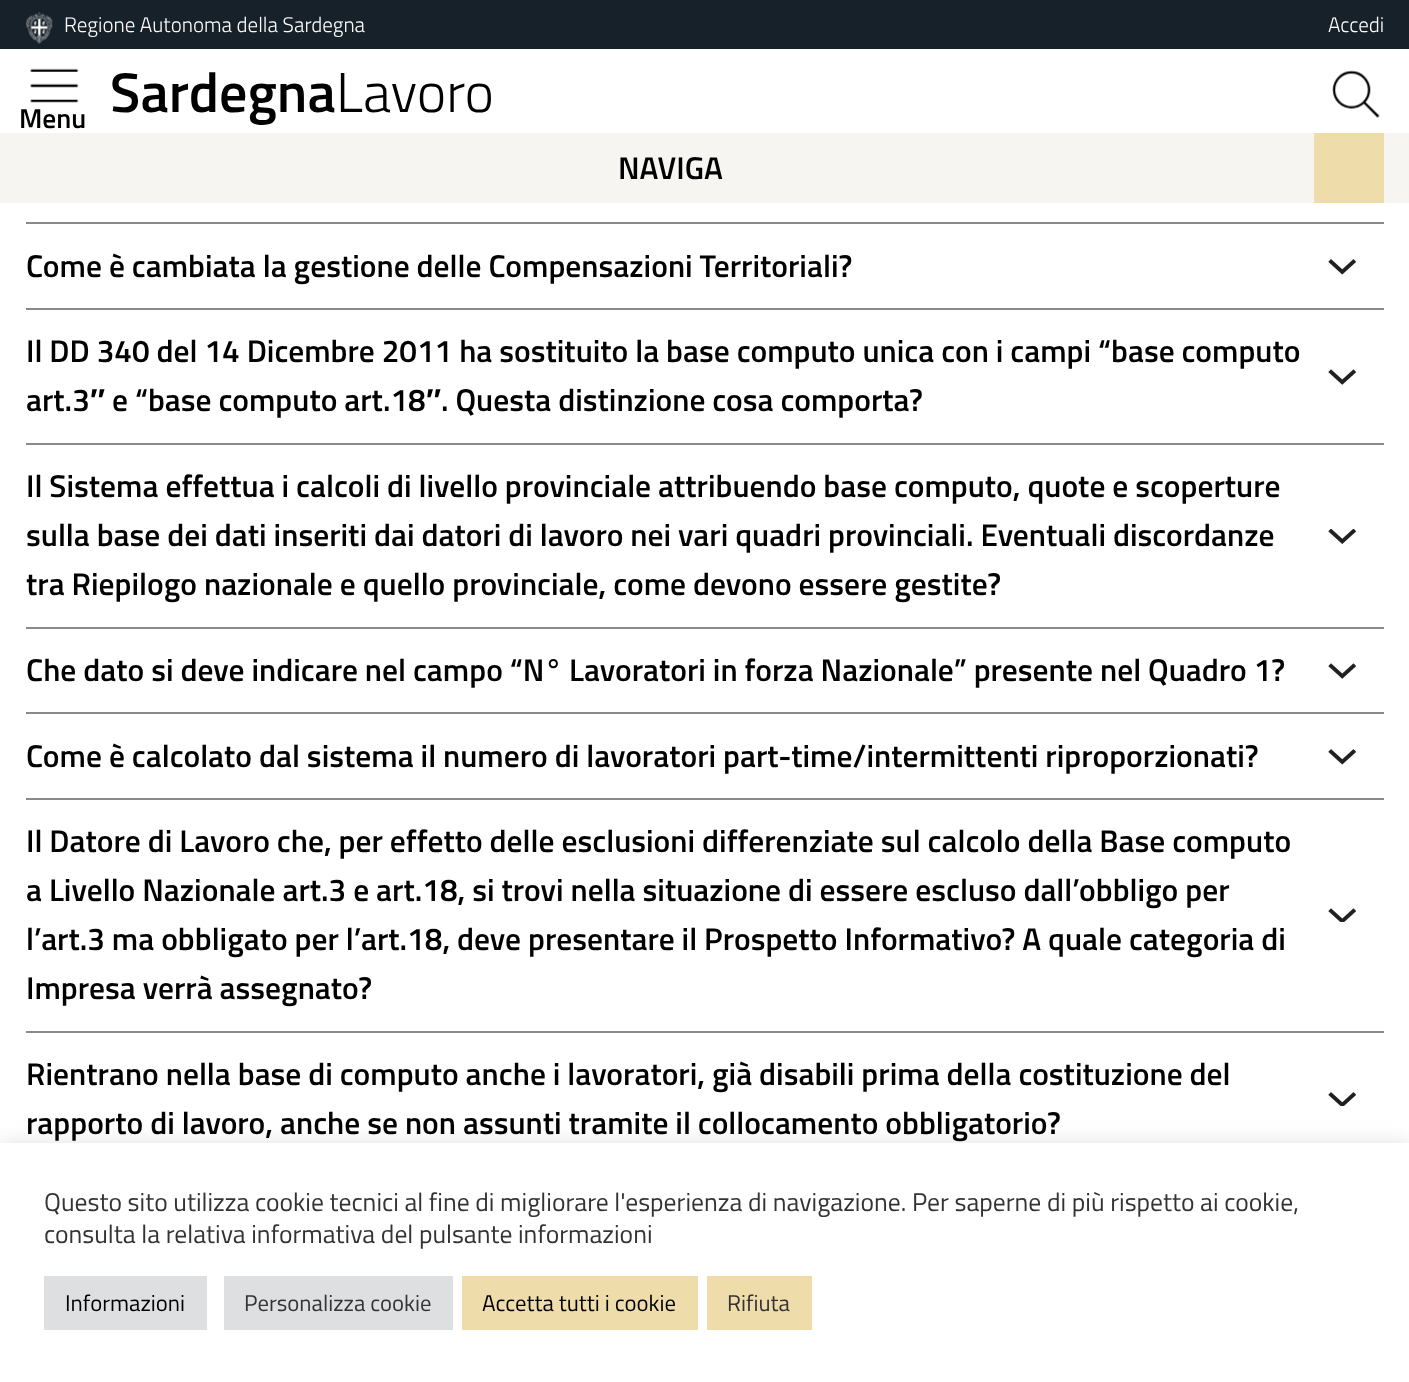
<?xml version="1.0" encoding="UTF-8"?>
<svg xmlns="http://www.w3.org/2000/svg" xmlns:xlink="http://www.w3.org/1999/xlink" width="1409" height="1382">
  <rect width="100%" height="100%" fill="#ffffff" />
  <rect width="1409" height="49" fill="#172129" />
  <image x="26" y="12" width="27" height="32" xlink:href="image1.png" />
  <image x="30" y="68" width="49" height="35" xlink:href="image2.png" />
  <image x="1332" y="70" width="48" height="48" xlink:href="image3.png" />
  <rect y="133" width="1409" height="70" fill="#f6f5f2" />
  <rect x="1314" y="133" width="70" height="70" fill="#efdcab" />
  <rect x="26" y="222" width="1358" height="2" fill="#8a8a8a" />
  <rect x="26" y="308" width="1358" height="2" fill="#8a8a8a" />
  <image x="1328" y="259" width="28" height="16" xlink:href="image4.png" />
  <rect x="26" y="443" width="1358" height="2" fill="#8a8a8a" />
  <image x="1328" y="369" width="28" height="16" xlink:href="image5.png" />
  <rect x="26" y="627" width="1358" height="2" fill="#8a8a8a" />
  <image x="1328" y="529" width="28" height="15" xlink:href="image6.png" />
  <rect x="26" y="712" width="1358" height="2" fill="#8a8a8a" />
  <image x="1328" y="663" width="28" height="16" xlink:href="image5.png" />
  <rect x="26" y="798" width="1358" height="2" fill="#8a8a8a" />
  <image x="1328" y="749" width="28" height="16" xlink:href="image4.png" />
  <rect x="26" y="1031" width="1358" height="2" fill="#8a8a8a" />
  <image x="1328" y="908" width="28" height="14" xlink:href="image7.png" />
  <image x="1328" y="1092" width="28" height="14" xlink:href="image8.png" />
  <rect y="1141" width="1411" height="240" fill="#acabab" fill-opacity="0.3" filter="blur(9px)" />
  <rect y="1143" width="1409" height="239" fill="#ffffff" />
  <rect x="44" y="1276" width="163" height="54" fill="#dedfe0" />
  <rect x="224" y="1276" width="229" height="54" fill="#dedfe0" />
  <rect x="462" y="1276" width="236" height="54" fill="#efdcab" />
  <rect x="707" y="1276" width="105" height="54" fill="#efdcab" />
  <text x="64" y="32" style="font-family: Titillium Web; font-size: 21px; font-weight: 300; fill: #ffffff">Regione Autonoma della Sardegna</text>
  <text x="1328" y="32" style="font-family: Titillium Web; font-size: 21px; font-weight: 300; fill: #ffffff">Accedi</text>
  <text x="19" y="128" style="font-family: Titillium Web; font-size: 27.5px; font-weight: 600; fill: #000000">Menu</text>
  <text x="110" y="112" style="font-family: Titillium Web; font-size: 56px; font-weight: 600; fill: #000000">Sardegna</text>
  <text x="336" y="112" style="font-family: Titillium Web; font-size: 56px; font-weight: 300; fill: #000000">Lavoro</text>
  <text x="618" y="179" style="font-family: Titillium Web; font-size: 31.5px; font-weight: 600; fill: #000000">NAVIGA</text>
  <text x="26" y="277" style="font-family: Titillium Web; font-size: 31.5px; font-weight: 600; fill: #000000">Come è cambiata la gestione delle Compensazioni Territoriali?</text>
  <text x="26" y="362" style="font-family: Titillium Web; font-size: 31.5px; font-weight: 600; fill: #000000">Il DD 340 del 14 Dicembre 2011 ha sostituito la base computo unica con i campi “base computo</text>
  <text x="26" y="411" style="font-family: Titillium Web; font-size: 31.5px; font-weight: 600; fill: #000000">art.3</text>
  <text x="90" y="411" style="font-family: Liberation Sans; font-size: 31.5px; font-weight: bold; fill: #000000">″</text>
  <text x="112" y="411" style="font-family: Titillium Web; font-size: 31.5px; font-weight: 600; fill: #000000">e “base computo art.18</text>
  <text x="426" y="411" style="font-family: Liberation Sans; font-size: 31.5px; font-weight: bold; fill: #000000">″</text>
  <text x="441" y="411" style="font-family: Titillium Web; font-size: 31.5px; font-weight: 600; fill: #000000">. Questa distinzione cosa comporta?</text>
  <text x="26" y="497" style="font-family: Titillium Web; font-size: 31.5px; font-weight: 600; fill: #000000">Il Sistema effettua i calcoli di livello provinciale attribuendo base computo, quote e scoperture</text>
  <text x="26" y="546" style="font-family: Titillium Web; font-size: 31.5px; font-weight: 600; fill: #000000">sulla base dei dati inseriti dai datori di lavoro nei vari quadri provinciali. Eventuali discordanze</text>
  <text x="26" y="595" style="font-family: Titillium Web; font-size: 31.5px; font-weight: 600; fill: #000000">tra Riepilogo nazionale e quello provinciale, come devono essere gestite?</text>
  <text x="26" y="681" style="font-family: Titillium Web; font-size: 31.5px; font-weight: 600; fill: #000000">Che dato si deve indicare nel campo “N° Lavoratori in forza Nazionale” presente nel Quadro 1?</text>
  <text x="26" y="767" style="font-family: Titillium Web; font-size: 31.5px; font-weight: 600; fill: #000000">Come è calcolato dal sistema il numero di lavoratori part-time/intermittenti riproporzionati?</text>
  <text x="26" y="852" style="font-family: Titillium Web; font-size: 31.5px; font-weight: 600; fill: #000000">Il Datore di Lavoro che, per effetto delle esclusioni differenziate sul calcolo della Base computo</text>
  <text x="26" y="901" style="font-family: Titillium Web; font-size: 31.5px; font-weight: 600; fill: #000000">a Livello Nazionale art.3 e art.18, si trovi nella situazione di essere escluso dall’obbligo per</text>
  <text x="26" y="950" style="font-family: Titillium Web; font-size: 31.5px; font-weight: 600; fill: #000000">l’art.3 ma obbligato per l’art.18, deve presentare il Prospetto Informativo? A quale categoria di</text>
  <text x="26" y="999" style="font-family: Titillium Web; font-size: 31.5px; font-weight: 600; fill: #000000">Impresa verrà assegnato?</text>
  <text x="26" y="1085" style="font-family: Titillium Web; font-size: 31.5px; font-weight: 600; fill: #000000">Rientrano nella base di computo anche i lavoratori, già disabili prima della costituzione del</text>
  <text x="26" y="1134" style="font-family: Titillium Web; font-size: 31.5px; font-weight: 600; fill: #000000">rapporto di lavoro, anche se non assunti tramite il collocamento obbligatorio?</text>
  <text x="44" y="1211" style="font-family: Titillium Web; font-size: 25.65px; fill: #333333">Questo sito utilizza cookie tecnici al fine di migliorare l'esperienza di navigazione. Per saperne di più rispetto ai cookie,</text>
  <text x="44" y="1243" style="font-family: Titillium Web; font-size: 25.65px; fill: #333333">consulta la relativa informativa del pulsante informazioni</text>
  <text x="65" y="1311" style="font-family: Titillium Web; font-size: 22.75px; fill: #000000">Informazioni</text>
  <text x="244" y="1311" style="font-family: Titillium Web; font-size: 22.75px; fill: #333333">Personalizza cookie</text>
  <text x="482" y="1311" style="font-family: Titillium Web; font-size: 22.75px; fill: #000000">Accetta tutti i cookie</text>
  <text x="727" y="1311" style="font-family: Titillium Web; font-size: 22.75px; fill: #333333">Rifiuta</text>
</svg>
